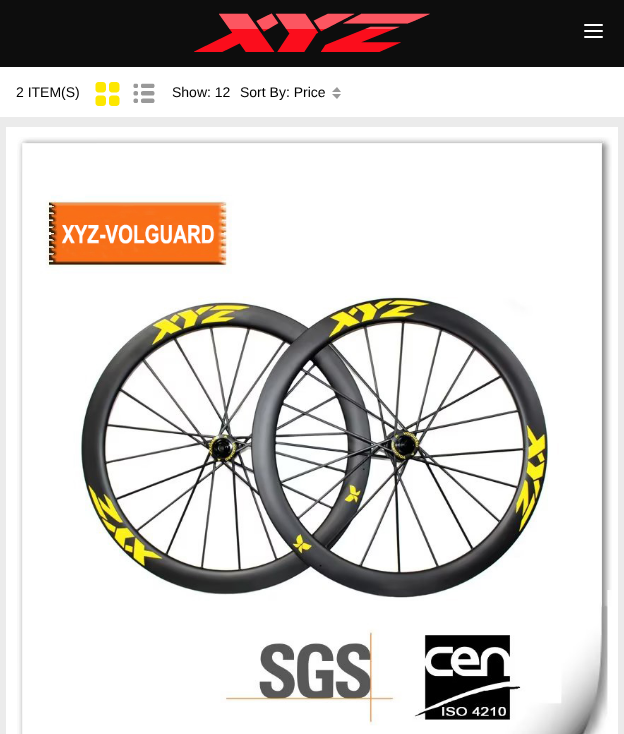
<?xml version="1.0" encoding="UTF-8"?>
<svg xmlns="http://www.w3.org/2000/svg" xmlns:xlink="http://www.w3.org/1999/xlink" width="624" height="734">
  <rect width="100%" height="100%" fill="#ffffff" />
  <rect width="624" height="67" fill="#0d0d0d" />
  <image x="194" y="13" width="236" height="39" xlink:href="image1.png" />
  <rect x="584" y="24" width="19" height="2" rx="1" fill="#ffffff" />
  <rect x="584" y="30" width="19" height="2" rx="1" fill="#ffffff" />
  <rect x="584" y="36" width="19" height="2" rx="1" fill="#ffffff" />
  <image x="95" y="82" width="25" height="24" xlink:href="image2.png" />
  <image x="133" y="83" width="22" height="20" xlink:href="image3.png" />
  <image x="332" y="87" width="9" height="12" xlink:href="image4.png" />
  <rect y="117" width="624" height="617" fill="#ebebeb" />
  <rect x="6" y="127" width="612" height="607" fill="#ffffff" />
  <image x="17" y="137" width="595" height="597" xlink:href="image5.png" />
  <text x="16" y="97" style="font-family: Liberation Sans; font-size: 14px; fill: #000000">2 ITEM(S)</text>
  <text x="172" y="97" style="font-family: Liberation Sans; font-size: 14px; fill: #000000">Show: 12</text>
  <text x="240" y="97" style="font-family: Liberation Sans; font-size: 14px; fill: #000000">Sort By: Price</text>
</svg>
